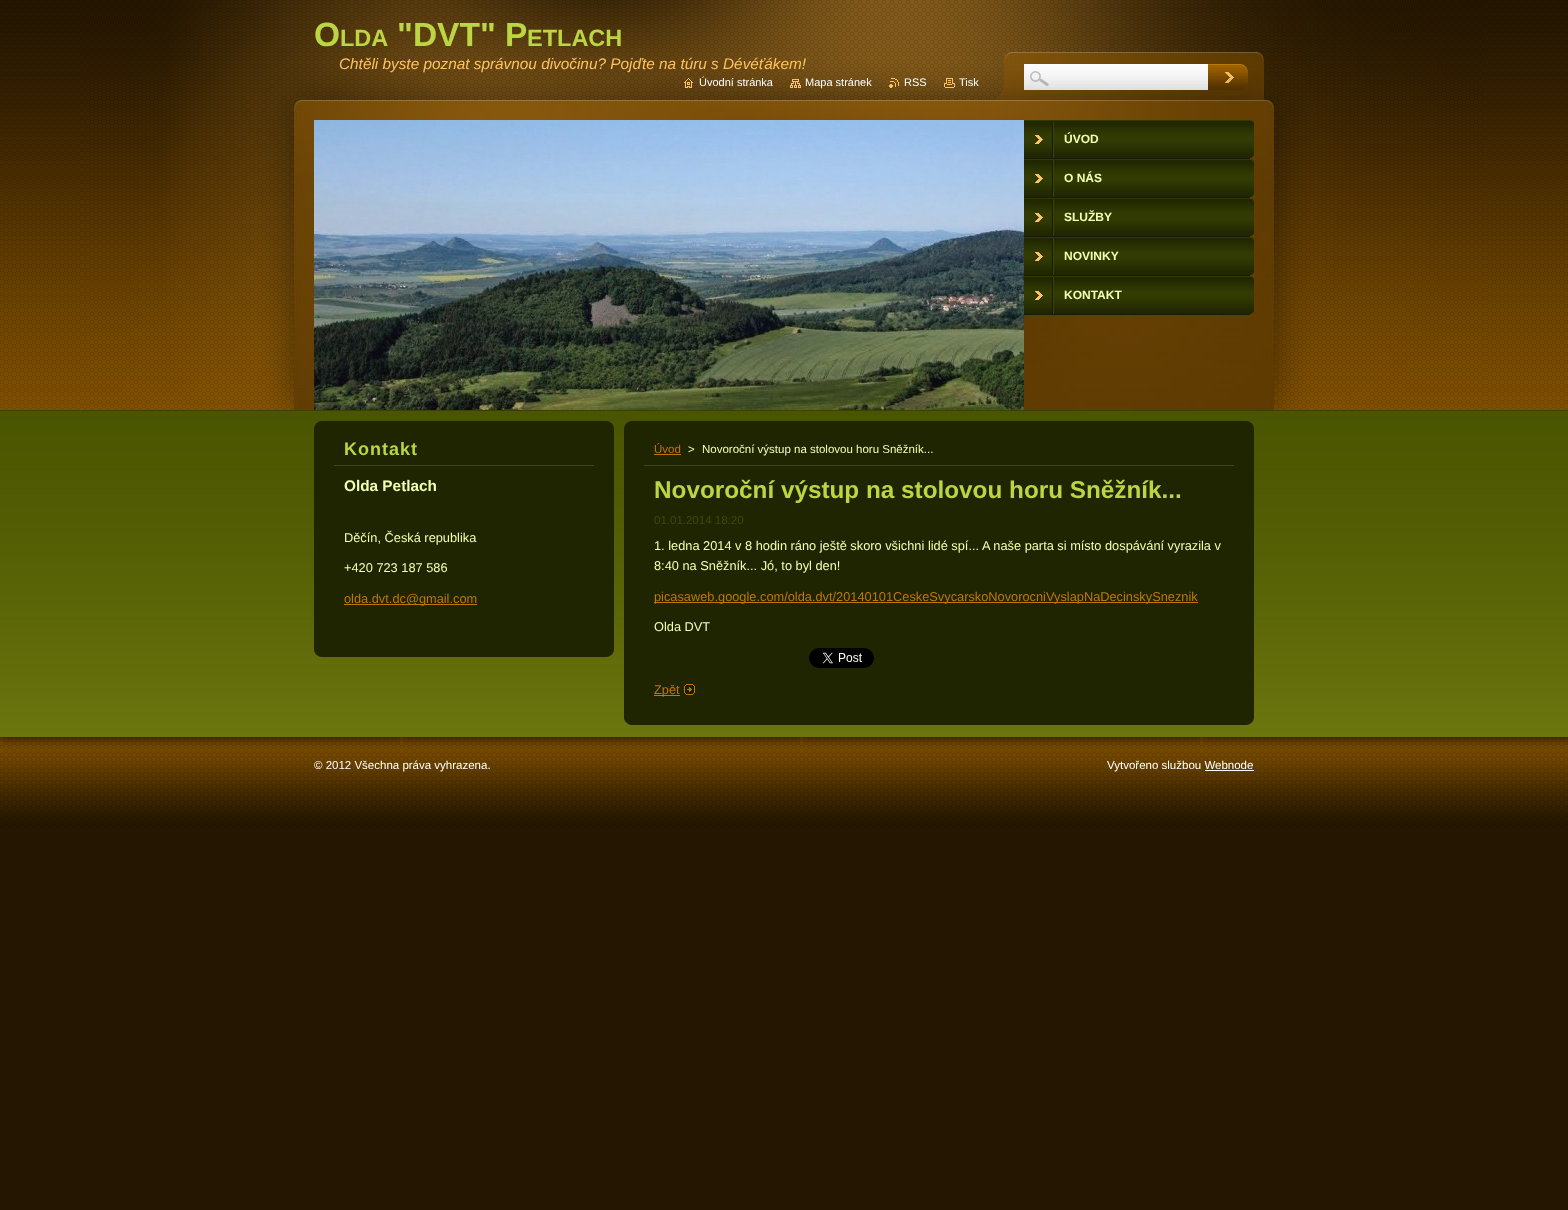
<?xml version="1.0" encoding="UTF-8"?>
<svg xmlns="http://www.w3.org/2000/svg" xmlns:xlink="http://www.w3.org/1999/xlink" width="1568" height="1210">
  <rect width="100%" height="100%" fill="#241600" />
  <image x="0" y="0" width="1568" height="737" xlink:href="image1.png" />
  <image x="84" y="0" width="1400" height="411" xlink:href="image2.png" />
  <image x="314" y="120" width="710" height="290" xlink:href="image3.png" />
  <image x="684" y="78" width="9" height="10" xlink:href="image4.png" />
  <image x="790" y="79" width="11" height="9" xlink:href="image5.png" />
  <image x="889" y="78" width="10" height="10" xlink:href="image6.png" />
  <image x="944" y="78" width="11" height="10" xlink:href="image7.png" />
  <rect x="1024" y="64" width="184" height="1" fill="#ffffff" />
  <image x="1024" y="65" width="184" height="25" xlink:href="image8.png" />
  <image x="1208" y="64" width="40" height="26" xlink:href="image9.png" />
  <image x="1024" y="120" width="230" height="39" xlink:href="image10.png" />
  <image x="1024" y="159" width="230" height="39" xlink:href="image10.png" />
  <image x="1024" y="198" width="230" height="39" xlink:href="image10.png" />
  <image x="1024" y="237" width="230" height="39" xlink:href="image10.png" />
  <image x="1024" y="276" width="230" height="39" xlink:href="image10.png" />
  <image x="314" y="421" width="300" height="8" xlink:href="image11.png" />
  <rect x="314" y="429" width="300" height="220" fill="#1f2500" />
  <rect x="334" y="465" width="260" height="1" fill="#3f4b00" />
  <rect x="344" y="604" width="133" height="1" fill="#c17800" />
  <image x="314" y="649" width="300" height="8" xlink:href="image12.png" />
  <image x="624" y="421" width="630" height="8" xlink:href="image13.png" />
  <rect x="624" y="429" width="630" height="288" fill="#1f2500" />
  <rect x="644" y="465" width="590" height="1" fill="#3f4b00" />
  <rect x="654" y="454" width="27" height="1" fill="#c17800" />
  <rect x="654" y="602" width="544" height="1" fill="#c17800" />
  <image x="809" y="648" width="65" height="20" xlink:href="image14.png" />
  <image x="684" y="684" width="11" height="11" xlink:href="image15.png" />
  <rect x="654" y="695" width="26" height="1" fill="#c17800" />
  <image x="624" y="717" width="630" height="8" xlink:href="image16.png" />
  <image x="0" y="737" width="1568" height="90" xlink:href="image17.png" />
  <rect x="1205" y="770" width="49" height="1" fill="#ffffff" />
  <text x="314" y="46" style="font-family: Liberation Sans; font-size: 33.5px; font-weight: bold; fill: #bcd543">O</text>
  <text x="340" y="46" style="font-family: Liberation Sans; font-size: 23.5px; font-weight: bold; fill: #bcd543">LDA</text>
  <text x="397" y="46" style="font-family: Liberation Sans; font-size: 33.5px; font-weight: bold; fill: #bcd543">"DVT" P</text>
  <text x="527" y="46" style="font-family: Liberation Sans; font-size: 23.5px; font-weight: bold; fill: #bcd543">ETLACH</text>
  <text x="339" y="69" style="font-family: Liberation Sans; font-size: 15.35px; font-style: italic; fill: #fec361">Chtěli byste poznat správnou divočinu? Pojďte na túru s Dévéťákem!</text>
  <text x="699" y="86" style="font-family: Liberation Sans; font-size: 11px; fill: #ffffff">Úvodní stránka</text>
  <text x="805" y="86" style="font-family: Liberation Sans; font-size: 11px; fill: #ffffff">Mapa stránek</text>
  <text x="904" y="86" style="font-family: Liberation Sans; font-size: 11px; fill: #ffffff">RSS</text>
  <text x="959" y="86" style="font-family: Liberation Sans; font-size: 11px; fill: #ffffff">Tisk</text>
  <text x="1064" y="143" style="font-family: Liberation Sans; font-size: 12px; font-weight: bold; fill: #f1ffb0">ÚVOD</text>
  <text x="1064" y="182" style="font-family: Liberation Sans; font-size: 12px; font-weight: bold; fill: #f1ffb0">O NÁS</text>
  <text x="1064" y="221" style="font-family: Liberation Sans; font-size: 12px; font-weight: bold; fill: #f1ffb0">SLUŽBY</text>
  <text x="1064" y="260" style="font-family: Liberation Sans; font-size: 12px; font-weight: bold; fill: #f1ffb0">NOVINKY</text>
  <text x="1064" y="299" style="font-family: Liberation Sans; font-size: 12px; font-weight: bold; fill: #f1ffb0">KONTAKT</text>
  <text x="344" y="455" style="font-family: Liberation Sans; font-size: 18px; font-weight: bold; letter-spacing: 1px; fill: #bcd543">Kontakt</text>
  <text x="344" y="491" style="font-family: Liberation Sans; font-size: 15.35px; font-weight: bold; fill: #f1ffb0">Olda Petlach</text>
  <text x="344" y="542" style="font-family: Liberation Sans; font-size: 12.8px; fill: #f1ffb0">Děčín, Česká republika</text>
  <text x="344" y="572" style="font-family: Liberation Sans; font-size: 12.8px; fill: #f1ffb0">+420 723 187 586</text>
  <text x="344" y="603" style="font-family: Liberation Sans; font-size: 12.8px; fill: #c17800">olda.dvt.dc@gmail.com</text>
  <text x="654" y="453" style="font-family: Liberation Sans; font-size: 11.5px; fill: #c17800">Úvod</text>
  <text x="688" y="453" style="font-family: Liberation Sans; font-size: 11.5px; fill: #f1ffb0">&gt;</text>
  <text x="702" y="453" style="font-family: Liberation Sans; font-size: 11.5px; fill: #f1ffb0">Novoroční výstup na stolovou horu Sněžník...</text>
  <text x="654" y="498" style="font-family: Liberation Sans; font-size: 24.3px; font-weight: bold; fill: #bcd543">Novoroční výstup na stolovou horu Sněžník...</text>
  <text x="654" y="524" style="font-family: Liberation Sans; font-size: 11.5px; fill: #3f4b00">01.01.2014 18:20</text>
  <text x="654" y="550" style="font-family: Liberation Sans; font-size: 12.8px; fill: #f1ffb0">1. ledna 2014 v 8 hodin ráno ještě skoro všichni lidé spí... A naše parta si místo dospávání vyrazila v</text>
  <text x="654" y="570" style="font-family: Liberation Sans; font-size: 12.8px; fill: #f1ffb0">8:40 na Sněžník... Jó, to byl den!</text>
  <text x="654" y="601" style="font-family: Liberation Sans; font-size: 12.8px; fill: #c17800">picasaweb.google.com/olda.dvt/20140101CeskeSvycarskoNovorocniVyslapNaDecinskySneznik</text>
  <text x="654" y="631" style="font-family: Liberation Sans; font-size: 12.8px; fill: #f1ffb0">Olda DVT</text>
  <text x="654" y="694" style="font-family: Liberation Sans; font-size: 12.8px; fill: #c17800">Zpět</text>
  <text x="314" y="769" style="font-family: Liberation Sans; font-size: 11.5px; fill: #ffffff">© 2012 Všechna práva vyhrazena.</text>
  <text x="1107" y="769" style="font-family: Liberation Sans; font-size: 11.5px; fill: #ffffff">Vytvořeno službou Webnode</text>
</svg>
